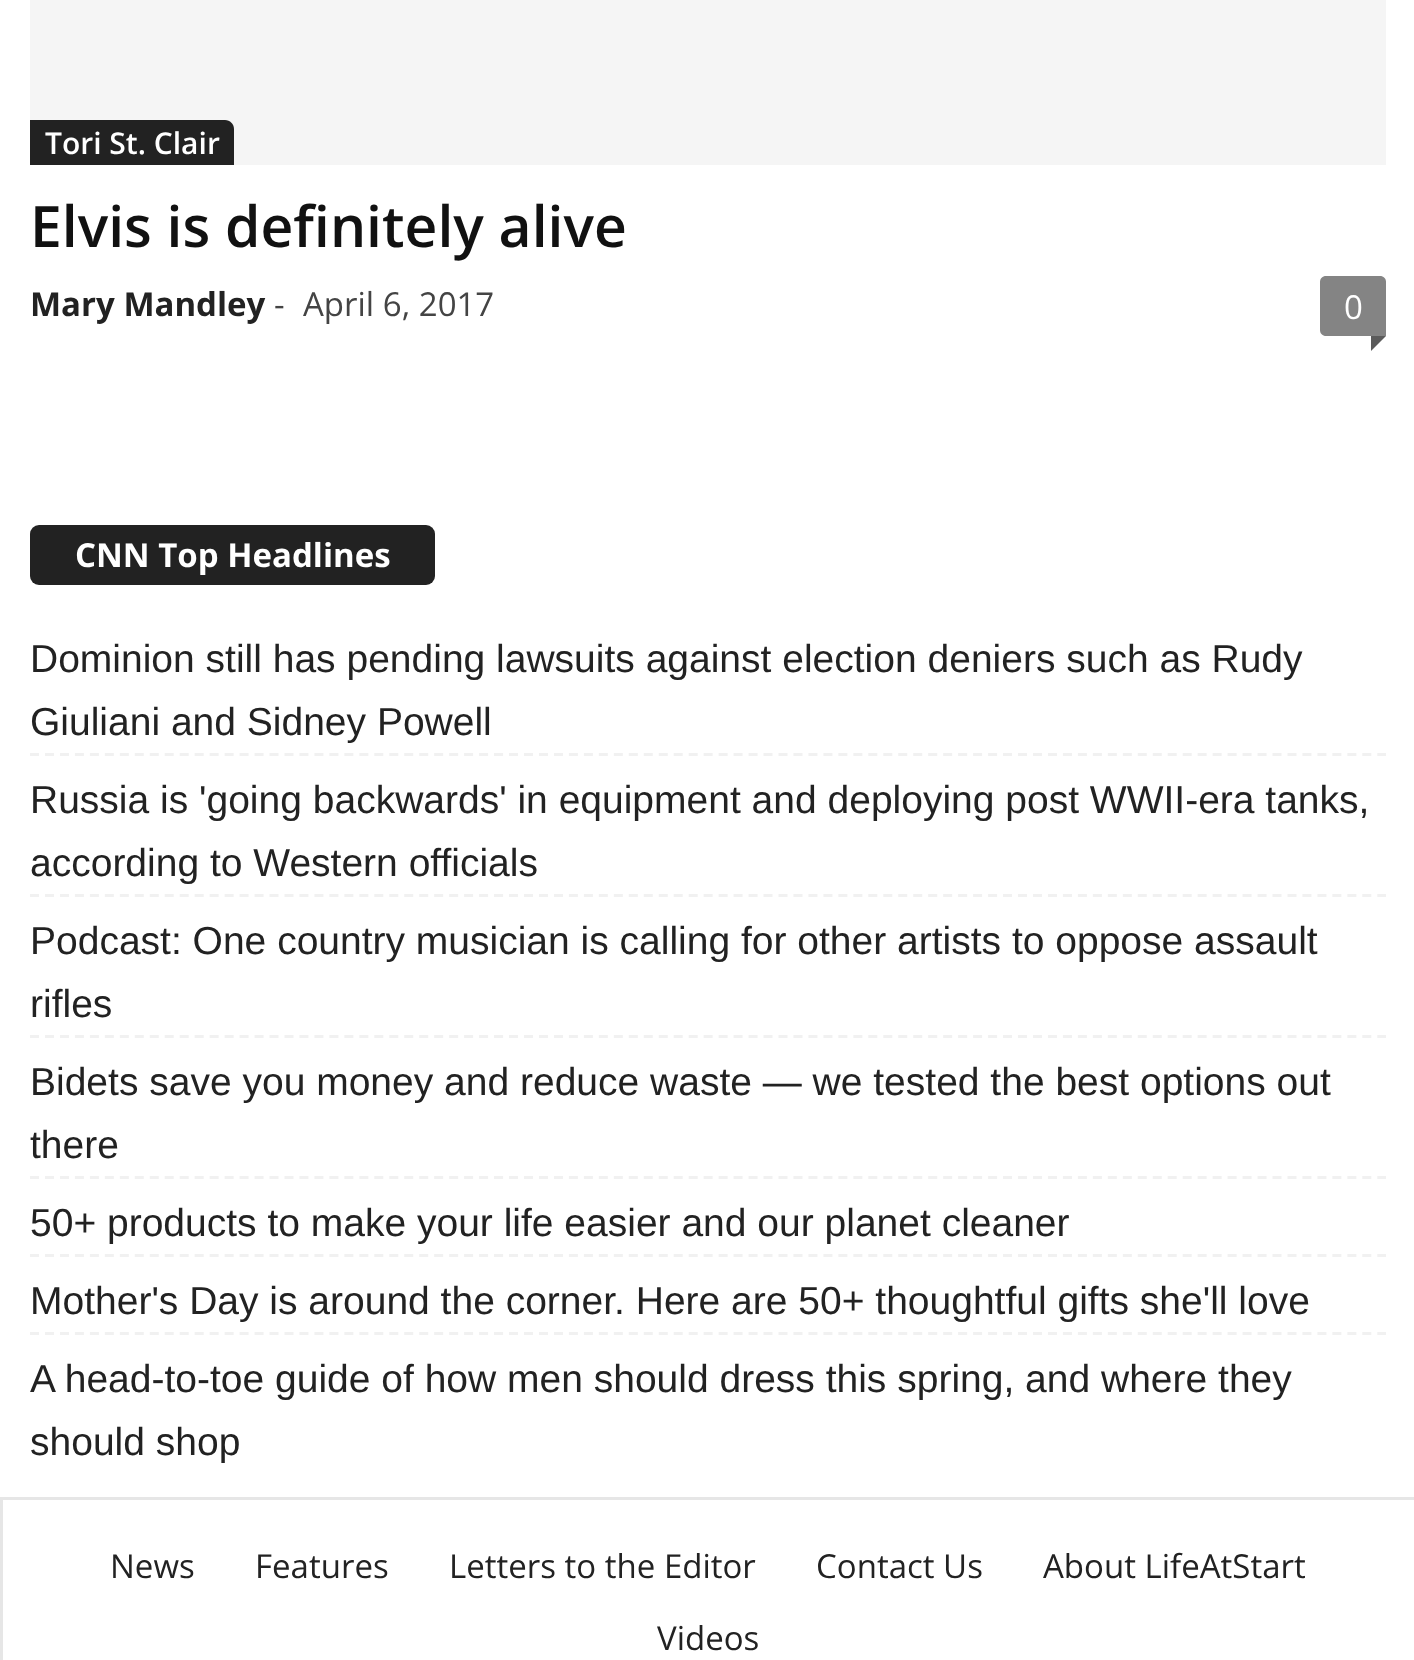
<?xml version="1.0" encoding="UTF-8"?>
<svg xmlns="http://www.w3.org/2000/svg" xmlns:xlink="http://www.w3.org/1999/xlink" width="1414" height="1660">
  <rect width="100%" height="100%" fill="#ffffff" />
  <rect y="1497" width="1414" height="3" fill="#e6e6e6" />
  <rect x="30" width="1356" height="165" fill="#f5f5f5" />
  <path d="M 30 120 h 195 c 5 0 9 4 9 9 v 36 h -204 z" fill="#222222" />
  <path d="M 1326 276 h 54 c 3.5 0 6 2.5 6 6 v 54 h -60 c -3.5 0 -6 -2.5 -6 -6 v -48 c 0 -3.5 2.5 -6 6 -6 z" fill="#848484" />
  <path d="M 1371 336 h 15 l -15 15 z" fill="#5b5b5b" />
  <rect x="30" y="525" width="405" height="60" rx="9" fill="#222222" />
  <path d="M 30 754.5 h 1356" fill="none" stroke="#f1f1f1" stroke-width="3" stroke-dasharray="9 5.97" />
  <path d="M 30 895.5 h 1356" fill="none" stroke="#f1f1f1" stroke-width="3" stroke-dasharray="9 5.97" />
  <path d="M 30 1036.5 h 1356" fill="none" stroke="#f1f1f1" stroke-width="3" stroke-dasharray="9 5.97" />
  <path d="M 30 1177.5 h 1356" fill="none" stroke="#f1f1f1" stroke-width="3" stroke-dasharray="9 5.97" />
  <path d="M 30 1255.5 h 1356" fill="none" stroke="#f1f1f1" stroke-width="3" stroke-dasharray="9 5.97" />
  <path d="M 30 1333.5 h 1356" fill="none" stroke="#f1f1f1" stroke-width="3" stroke-dasharray="9 5.97" />
  <rect y="1500" width="3" height="160" fill="#e6e6e6" />
  <text x="45" y="154" style="font-family: Open Sans; font-size: 30px; font-weight: 600; fill: #ffffff">Tori St. Clair</text>
  <text x="30" y="247" style="font-family: Open Sans; font-size: 57px; font-weight: 600; fill: #111111">Elvis is definitely alive</text>
  <text x="30" y="316" style="font-family: Open Sans; font-size: 33px; font-weight: bold; fill: #222222">Mary Mandley</text>
  <text x="274" y="316" style="font-family: Open Sans; font-size: 33px; fill: #444444">-</text>
  <text x="303" y="316" style="font-family: Open Sans; font-size: 33px; fill: #444444">April 6, 2017</text>
  <text x="1344" y="319" style="font-family: Open Sans; font-size: 33px; fill: #ffffff">0</text>
  <text x="75" y="567" style="font-family: Open Sans; font-size: 33px; font-weight: bold; fill: #ffffff">CNN Top Headlines</text>
  <text x="30" y="672" style="font-family: Liberation Sans; font-size: 39px; fill: #222222">Dominion still has pending lawsuits against election deniers such as Rudy</text>
  <text x="30" y="735" style="font-family: Liberation Sans; font-size: 39px; fill: #222222">Giuliani and Sidney Powell</text>
  <text x="30" y="813" style="font-family: Liberation Sans; font-size: 39px; fill: #222222">Russia is 'going backwards' in equipment and deploying post WWII-era tanks,</text>
  <text x="30" y="876" style="font-family: Liberation Sans; font-size: 39px; fill: #222222">according to Western officials</text>
  <text x="30" y="954" style="font-family: Liberation Sans; font-size: 39px; fill: #222222">Podcast: One country musician is calling for other artists to oppose assault</text>
  <text x="30" y="1017" style="font-family: Liberation Sans; font-size: 39px; fill: #222222">rifles</text>
  <text x="30" y="1095" style="font-family: Liberation Sans; font-size: 39px; fill: #222222">Bidets save you money and reduce waste — we tested the best options out</text>
  <text x="30" y="1158" style="font-family: Liberation Sans; font-size: 39px; fill: #222222">there</text>
  <text x="30" y="1236" style="font-family: Liberation Sans; font-size: 39px; fill: #222222">50+ products to make your life easier and our planet cleaner</text>
  <text x="30" y="1314" style="font-family: Liberation Sans; font-size: 39px; fill: #222222">Mother's Day is around the corner. Here are 50+ thoughtful gifts she'll love</text>
  <text x="30" y="1392" style="font-family: Liberation Sans; font-size: 39px; fill: #222222">A head-to-toe guide of how men should dress this spring, and where they</text>
  <text x="30" y="1455" style="font-family: Liberation Sans; font-size: 39px; fill: #222222">should shop</text>
  <text x="110" y="1578" style="font-family: Open Sans; font-size: 33px; fill: #222222">News</text>
  <text x="255" y="1578" style="font-family: Open Sans; font-size: 33px; fill: #222222">Features</text>
  <text x="449" y="1578" style="font-family: Open Sans; font-size: 33px; fill: #222222">Letters to the Editor</text>
  <text x="816" y="1578" style="font-family: Open Sans; font-size: 33px; fill: #222222">Contact Us</text>
  <text x="1043" y="1578" style="font-family: Open Sans; font-size: 33px; fill: #222222">About LifeAtStart</text>
  <text x="657" y="1650" style="font-family: Open Sans; font-size: 33px; fill: #222222">Videos</text>
</svg>
